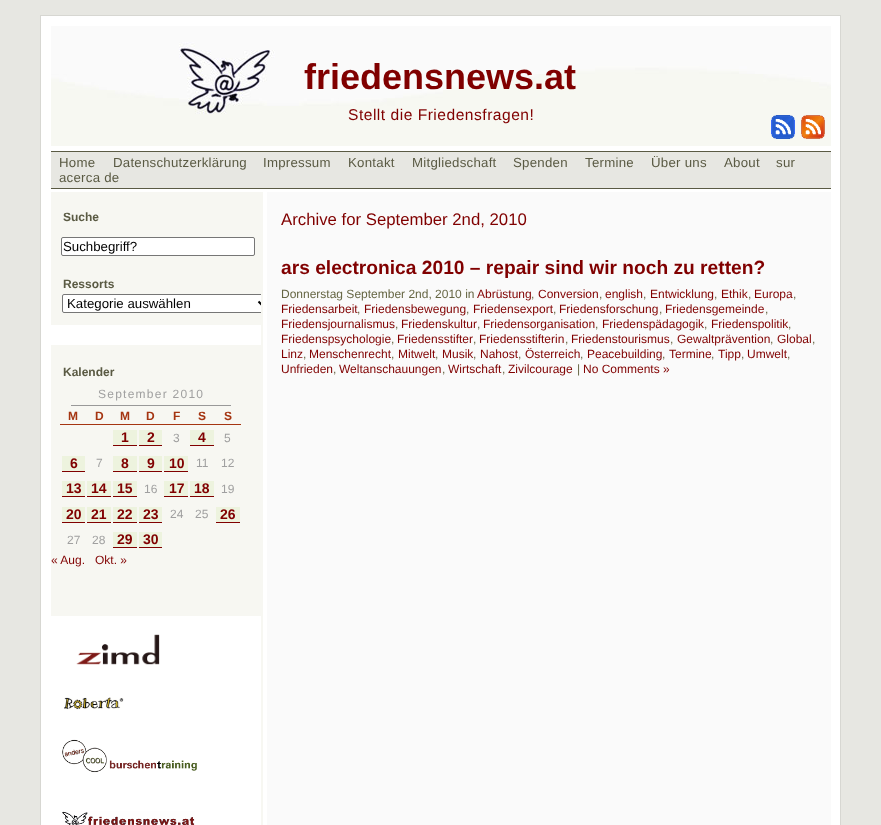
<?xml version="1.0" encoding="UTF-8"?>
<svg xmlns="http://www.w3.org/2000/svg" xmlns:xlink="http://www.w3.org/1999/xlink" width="881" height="825">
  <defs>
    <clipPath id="clip1"><rect x="51" y="200" width="210" height="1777" /></clipPath>
  </defs>
  <rect width="100%" height="100%" fill="#e7e7e2" />
  <rect x="40.5" y="15.5" width="800" height="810" fill="#ffffff" stroke="#d7d7d2" />
  <image x="51" y="26" width="780" height="120" xlink:href="image1.png" />
  <image x="771" y="115" width="24" height="24" xlink:href="image2.png" />
  <image x="801" y="115" width="24" height="24" xlink:href="image3.png" />
  <rect x="51" y="152" width="780" height="36" fill="#e7e7e2" />
  <rect x="51" y="151" width="780" height="1" fill="#5a5a43" />
  <rect x="51" y="188" width="780" height="1" fill="#5a5a43" />
  <image x="51" y="192" width="780" height="633" xlink:href="image4.png" />
  <rect x="61.5" y="237.5" width="193" height="18" rx="1.5" fill="#ffffff" stroke="#767676" />
  <path d="M 64 294 h 197 v 19 h -197 c -1 0 -2 -1 -2 -2 v -15 c 0 -1 1 -2 2 -2 z" fill="#ffffff" />
  <g clip-path="url(#clip1)">
    <rect x="62.5" y="294.5" width="209" height="18" rx="1.5" fill="none" stroke="#767676" />
    <path d="M 258.5 301.5 l 4 4 l 4 -4" fill="none" stroke="#000000" stroke-width="2" />
  </g>
  <rect x="51" y="325" width="210" height="20" fill="#ffffff" />
  <rect x="71" y="405" width="160" height="1" fill="#999999" />
  <rect x="60" y="424" width="181" height="1" fill="#a53512" />
  <rect x="113" y="430" width="24" height="15" fill="#edf3de" />
  <rect x="113" y="445" width="24" height="1" fill="#800000" />
  <rect x="139" y="430" width="23" height="15" fill="#edf3de" />
  <rect x="139" y="445" width="23" height="1" fill="#800000" />
  <rect x="190" y="430" width="24" height="15" fill="#edf3de" />
  <rect x="190" y="445" width="24" height="1" fill="#800000" />
  <rect x="62" y="456" width="23" height="15" fill="#edf3de" />
  <rect x="62" y="471" width="23" height="1" fill="#800000" />
  <rect x="113" y="456" width="24" height="15" fill="#edf3de" />
  <rect x="113" y="471" width="24" height="1" fill="#800000" />
  <rect x="139" y="456" width="23" height="15" fill="#edf3de" />
  <rect x="139" y="471" width="23" height="1" fill="#800000" />
  <rect x="164" y="456" width="24" height="15" fill="#edf3de" />
  <rect x="164" y="471" width="24" height="1" fill="#800000" />
  <rect x="62" y="481" width="23" height="15" fill="#edf3de" />
  <rect x="62" y="496" width="23" height="1" fill="#800000" />
  <rect x="87" y="481" width="24" height="15" fill="#edf3de" />
  <rect x="87" y="496" width="24" height="1" fill="#800000" />
  <rect x="113" y="481" width="24" height="15" fill="#edf3de" />
  <rect x="113" y="496" width="24" height="1" fill="#800000" />
  <rect x="164" y="481" width="24" height="15" fill="#edf3de" />
  <rect x="164" y="496" width="24" height="1" fill="#800000" />
  <rect x="190" y="481" width="24" height="15" fill="#edf3de" />
  <rect x="190" y="496" width="24" height="1" fill="#800000" />
  <rect x="62" y="507" width="23" height="15" fill="#edf3de" />
  <rect x="62" y="522" width="23" height="1" fill="#800000" />
  <rect x="87" y="507" width="24" height="15" fill="#edf3de" />
  <rect x="87" y="522" width="24" height="1" fill="#800000" />
  <rect x="113" y="507" width="24" height="15" fill="#edf3de" />
  <rect x="113" y="522" width="24" height="1" fill="#800000" />
  <rect x="139" y="507" width="23" height="15" fill="#edf3de" />
  <rect x="139" y="522" width="23" height="1" fill="#800000" />
  <rect x="216" y="507" width="24" height="15" fill="#edf3de" />
  <rect x="216" y="522" width="24" height="1" fill="#800000" />
  <rect x="113" y="532" width="24" height="15" fill="#edf3de" />
  <rect x="113" y="547" width="24" height="1" fill="#800000" />
  <rect x="139" y="532" width="23" height="15" fill="#edf3de" />
  <rect x="139" y="547" width="23" height="1" fill="#800000" />
  <rect x="51" y="616" width="210" height="209" fill="#ffffff" />
  <image x="76" y="634" width="84" height="31" xlink:href="image5.png" />
  <image x="64" y="697" width="60" height="13" xlink:href="image6.png" />
  <image x="62" y="739" width="135" height="34" xlink:href="image7.png" />
  <image x="62" y="811" width="133" height="14" xlink:href="image8.png" />
  <text x="304" y="89" style="font-family: Liberation Sans; font-size: 36px; font-weight: bold; fill: #800000">friedensnews.at</text>
  <text x="348" y="120" style="font-family: Liberation Sans; font-size: 15.6px; letter-spacing: 0.5px; fill: #800000">Stellt die Friedensfragen!</text>
  <text x="59" y="167" style="font-family: Liberation Sans; font-size: 13.25px; letter-spacing: 0.25px; fill: #5a5a43">Home</text>
  <text x="113" y="167" style="font-family: Liberation Sans; font-size: 13.25px; letter-spacing: 0.25px; fill: #5a5a43">Datenschutzerklärung</text>
  <text x="263" y="167" style="font-family: Liberation Sans; font-size: 13.25px; letter-spacing: 0.25px; fill: #5a5a43">Impressum</text>
  <text x="348" y="167" style="font-family: Liberation Sans; font-size: 13.25px; letter-spacing: 0.25px; fill: #5a5a43">Kontakt</text>
  <text x="412" y="167" style="font-family: Liberation Sans; font-size: 13.25px; letter-spacing: 0.25px; fill: #5a5a43">Mitgliedschaft</text>
  <text x="513" y="167" style="font-family: Liberation Sans; font-size: 13.25px; letter-spacing: 0.25px; fill: #5a5a43">Spenden</text>
  <text x="585" y="167" style="font-family: Liberation Sans; font-size: 13.25px; letter-spacing: 0.25px; fill: #5a5a43">Termine</text>
  <text x="651" y="167" style="font-family: Liberation Sans; font-size: 13.25px; letter-spacing: 0.25px; fill: #5a5a43">Über uns</text>
  <text x="724" y="167" style="font-family: Liberation Sans; font-size: 13.25px; letter-spacing: 0.25px; fill: #5a5a43">About</text>
  <text x="776" y="167" style="font-family: Liberation Sans; font-size: 13.25px; letter-spacing: 0.25px; fill: #5a5a43">sur</text>
  <text x="59" y="182" style="font-family: Liberation Sans; font-size: 13.25px; letter-spacing: 0.25px; fill: #5a5a43">acerca de</text>
  <text x="63" y="221" style="font-family: Liberation Sans; font-size: 12px; font-weight: bold; fill: #5a5a43">Suche</text>
  <text x="63" y="251" style="font-family: Liberation Sans; font-size: 13.25px; fill: #000000">Suchbegriff?</text>
  <text x="63" y="288" style="font-family: Liberation Sans; font-size: 12px; font-weight: bold; fill: #5a5a43">Ressorts</text>
  <text x="67" y="308" style="font-family: Liberation Sans; font-size: 13.25px; fill: #000000">Kategorie auswählen</text>
  <text x="63" y="376" style="font-family: Liberation Sans; font-size: 12px; font-weight: bold; fill: #5a5a43">Kalender</text>
  <text x="98" y="398" style="font-family: Liberation Sans; font-size: 12px; letter-spacing: 1.25px; fill: #a0a0a0">September 2010</text>
  <text x="68" y="420" style="font-family: Liberation Sans; font-size: 12px; font-weight: bold; fill: #a53512">M</text>
  <text x="95" y="420" style="font-family: Liberation Sans; font-size: 12px; font-weight: bold; fill: #a53512">D</text>
  <text x="120" y="420" style="font-family: Liberation Sans; font-size: 12px; font-weight: bold; fill: #a53512">M</text>
  <text x="146" y="420" style="font-family: Liberation Sans; font-size: 12px; font-weight: bold; fill: #a53512">D</text>
  <text x="173" y="420" style="font-family: Liberation Sans; font-size: 12px; font-weight: bold; fill: #a53512">F</text>
  <text x="198" y="420" style="font-family: Liberation Sans; font-size: 12px; font-weight: bold; fill: #a53512">S</text>
  <text x="224" y="420" style="font-family: Liberation Sans; font-size: 12px; font-weight: bold; fill: #a53512">S</text>
  <text x="121" y="442" style="font-family: Liberation Sans; font-size: 14px; font-weight: bold; fill: #800000">1</text>
  <text x="147" y="442" style="font-family: Liberation Sans; font-size: 14px; font-weight: bold; fill: #800000">2</text>
  <text x="173" y="442" style="font-family: Liberation Sans; font-size: 12px; fill: #a0a0a0">3</text>
  <text x="198" y="442" style="font-family: Liberation Sans; font-size: 14px; font-weight: bold; fill: #800000">4</text>
  <text x="224" y="442" style="font-family: Liberation Sans; font-size: 12px; fill: #a0a0a0">5</text>
  <text x="70" y="468" style="font-family: Liberation Sans; font-size: 14px; font-weight: bold; fill: #800000">6</text>
  <text x="96" y="467" style="font-family: Liberation Sans; font-size: 12px; fill: #a0a0a0">7</text>
  <text x="121" y="468" style="font-family: Liberation Sans; font-size: 14px; font-weight: bold; fill: #800000">8</text>
  <text x="147" y="468" style="font-family: Liberation Sans; font-size: 14px; font-weight: bold; fill: #800000">9</text>
  <text x="169" y="468" style="font-family: Liberation Sans; font-size: 14px; font-weight: bold; fill: #800000">10</text>
  <text x="196" y="467" style="font-family: Liberation Sans; font-size: 12px; fill: #a0a0a0">11</text>
  <text x="221" y="467" style="font-family: Liberation Sans; font-size: 12px; fill: #a0a0a0">12</text>
  <text x="66" y="493" style="font-family: Liberation Sans; font-size: 14px; font-weight: bold; fill: #800000">13</text>
  <text x="91" y="493" style="font-family: Liberation Sans; font-size: 14px; font-weight: bold; fill: #800000">14</text>
  <text x="117" y="493" style="font-family: Liberation Sans; font-size: 14px; font-weight: bold; fill: #800000">15</text>
  <text x="144" y="493" style="font-family: Liberation Sans; font-size: 12px; fill: #a0a0a0">16</text>
  <text x="169" y="493" style="font-family: Liberation Sans; font-size: 14px; font-weight: bold; fill: #800000">17</text>
  <text x="194" y="493" style="font-family: Liberation Sans; font-size: 14px; font-weight: bold; fill: #800000">18</text>
  <text x="221" y="493" style="font-family: Liberation Sans; font-size: 12px; fill: #a0a0a0">19</text>
  <text x="66" y="519" style="font-family: Liberation Sans; font-size: 14px; font-weight: bold; fill: #800000">20</text>
  <text x="91" y="519" style="font-family: Liberation Sans; font-size: 14px; font-weight: bold; fill: #800000">21</text>
  <text x="117" y="519" style="font-family: Liberation Sans; font-size: 14px; font-weight: bold; fill: #800000">22</text>
  <text x="143" y="519" style="font-family: Liberation Sans; font-size: 14px; font-weight: bold; fill: #800000">23</text>
  <text x="170" y="518" style="font-family: Liberation Sans; font-size: 12px; fill: #a0a0a0">24</text>
  <text x="195" y="518" style="font-family: Liberation Sans; font-size: 12px; fill: #a0a0a0">25</text>
  <text x="220" y="519" style="font-family: Liberation Sans; font-size: 14px; font-weight: bold; fill: #800000">26</text>
  <text x="67" y="544" style="font-family: Liberation Sans; font-size: 12px; fill: #a0a0a0">27</text>
  <text x="92" y="544" style="font-family: Liberation Sans; font-size: 12px; fill: #a0a0a0">28</text>
  <text x="117" y="544" style="font-family: Liberation Sans; font-size: 14px; font-weight: bold; fill: #800000">29</text>
  <text x="143" y="544" style="font-family: Liberation Sans; font-size: 14px; font-weight: bold; fill: #800000">30</text>
  <text x="51" y="564" style="font-family: Liberation Sans; font-size: 12px; fill: #800000">« Aug.</text>
  <text x="95" y="564" style="font-family: Liberation Sans; font-size: 12px; fill: #800000">Okt. »</text>
  <text x="281" y="225" style="font-family: Liberation Sans; font-size: 16.75px; fill: #800000">Archive for September 2nd, 2010</text>
  <text x="281" y="274" style="font-family: Liberation Sans; font-size: 19.2px; font-weight: bold; fill: #800000">ars electronica 2010 – repair sind wir noch zu retten?</text>
  <text x="281" y="298" style="font-family: Liberation Sans; font-size: 12px; fill: #666644">Donnerstag September 2nd, 2010 in</text>
  <text x="477" y="298" style="font-family: Liberation Sans; font-size: 12px; fill: #800000">Abrüstung</text>
  <text x="531" y="298" style="font-family: Liberation Sans; font-size: 12px; fill: #666644">,</text>
  <text x="538" y="298" style="font-family: Liberation Sans; font-size: 12px; fill: #800000">Conversion</text>
  <text x="599" y="298" style="font-family: Liberation Sans; font-size: 12px; fill: #666644">,</text>
  <text x="605" y="298" style="font-family: Liberation Sans; font-size: 12px; fill: #800000">english</text>
  <text x="643" y="298" style="font-family: Liberation Sans; font-size: 12px; fill: #666644">,</text>
  <text x="650" y="298" style="font-family: Liberation Sans; font-size: 12px; fill: #800000">Entwicklung</text>
  <text x="714" y="298" style="font-family: Liberation Sans; font-size: 12px; fill: #666644">,</text>
  <text x="721" y="298" style="font-family: Liberation Sans; font-size: 12px; fill: #800000">Ethik</text>
  <text x="748" y="298" style="font-family: Liberation Sans; font-size: 12px; fill: #666644">,</text>
  <text x="754" y="298" style="font-family: Liberation Sans; font-size: 12px; fill: #800000">Europa</text>
  <text x="793" y="298" style="font-family: Liberation Sans; font-size: 12px; fill: #666644">,</text>
  <text x="281" y="313" style="font-family: Liberation Sans; font-size: 12px; fill: #800000">Friedensarbeit</text>
  <text x="357" y="313" style="font-family: Liberation Sans; font-size: 12px; fill: #666644">,</text>
  <text x="364" y="313" style="font-family: Liberation Sans; font-size: 12px; fill: #800000">Friedensbewegung</text>
  <text x="466" y="313" style="font-family: Liberation Sans; font-size: 12px; fill: #666644">,</text>
  <text x="473" y="313" style="font-family: Liberation Sans; font-size: 12px; fill: #800000">Friedensexport</text>
  <text x="553" y="313" style="font-family: Liberation Sans; font-size: 12px; fill: #666644">,</text>
  <text x="559" y="313" style="font-family: Liberation Sans; font-size: 12px; fill: #800000">Friedensforschung</text>
  <text x="659" y="313" style="font-family: Liberation Sans; font-size: 12px; fill: #666644">,</text>
  <text x="665" y="313" style="font-family: Liberation Sans; font-size: 12px; fill: #800000">Friedensgemeinde</text>
  <text x="765" y="313" style="font-family: Liberation Sans; font-size: 12px; fill: #666644">,</text>
  <text x="281" y="328" style="font-family: Liberation Sans; font-size: 12px; fill: #800000">Friedensjournalismus</text>
  <text x="395" y="328" style="font-family: Liberation Sans; font-size: 12px; fill: #666644">,</text>
  <text x="401" y="328" style="font-family: Liberation Sans; font-size: 12px; fill: #800000">Friedenskultur</text>
  <text x="483" y="328" style="font-family: Liberation Sans; font-size: 12px; fill: #800000">Friedensorganisation</text>
  <text x="602" y="328" style="font-family: Liberation Sans; font-size: 12px; fill: #800000">Friedenspädagogik</text>
  <text x="711" y="328" style="font-family: Liberation Sans; font-size: 12px; fill: #800000">Friedenspolitik</text>
  <text x="477" y="328" style="font-family: Liberation Sans; font-size: 12px; fill: #666644">,</text>
  <text x="595" y="328" style="font-family: Liberation Sans; font-size: 12px; fill: #666644">,</text>
  <text x="704" y="328" style="font-family: Liberation Sans; font-size: 12px; fill: #666644">,</text>
  <text x="788" y="328" style="font-family: Liberation Sans; font-size: 12px; fill: #666644">,</text>
  <text x="281" y="343" style="font-family: Liberation Sans; font-size: 12px; fill: #800000">Friedenspsychologie</text>
  <text x="391" y="343" style="font-family: Liberation Sans; font-size: 12px; fill: #666644">,</text>
  <text x="397" y="343" style="font-family: Liberation Sans; font-size: 12px; fill: #800000">Friedensstifter</text>
  <text x="479" y="343" style="font-family: Liberation Sans; font-size: 12px; fill: #800000">Friedensstifterin</text>
  <text x="571" y="343" style="font-family: Liberation Sans; font-size: 12px; fill: #800000">Friedenstourismus</text>
  <text x="677" y="343" style="font-family: Liberation Sans; font-size: 12px; fill: #800000">Gewaltprävention</text>
  <text x="777" y="343" style="font-family: Liberation Sans; font-size: 12px; fill: #800000">Global</text>
  <text x="473" y="343" style="font-family: Liberation Sans; font-size: 12px; fill: #666644">,</text>
  <text x="565" y="343" style="font-family: Liberation Sans; font-size: 12px; fill: #666644">,</text>
  <text x="670" y="343" style="font-family: Liberation Sans; font-size: 12px; fill: #666644">,</text>
  <text x="770" y="343" style="font-family: Liberation Sans; font-size: 12px; fill: #666644">,</text>
  <text x="812" y="343" style="font-family: Liberation Sans; font-size: 12px; fill: #666644">,</text>
  <text x="281" y="358" style="font-family: Liberation Sans; font-size: 12px; fill: #800000">Linz</text>
  <text x="303" y="358" style="font-family: Liberation Sans; font-size: 12px; fill: #666644">,</text>
  <text x="309" y="358" style="font-family: Liberation Sans; font-size: 12px; fill: #800000">Menschenrecht</text>
  <text x="391" y="358" style="font-family: Liberation Sans; font-size: 12px; fill: #666644">,</text>
  <text x="398" y="358" style="font-family: Liberation Sans; font-size: 12px; fill: #800000">Mitwelt</text>
  <text x="435" y="358" style="font-family: Liberation Sans; font-size: 12px; fill: #666644">,</text>
  <text x="442" y="358" style="font-family: Liberation Sans; font-size: 12px; fill: #800000">Musik</text>
  <text x="473" y="358" style="font-family: Liberation Sans; font-size: 12px; fill: #666644">,</text>
  <text x="480" y="358" style="font-family: Liberation Sans; font-size: 12px; fill: #800000">Nahost</text>
  <text x="518" y="358" style="font-family: Liberation Sans; font-size: 12px; fill: #666644">,</text>
  <text x="525" y="358" style="font-family: Liberation Sans; font-size: 12px; fill: #800000">Österreich</text>
  <text x="580" y="358" style="font-family: Liberation Sans; font-size: 12px; fill: #666644">,</text>
  <text x="587" y="358" style="font-family: Liberation Sans; font-size: 12px; fill: #800000">Peacebuilding</text>
  <text x="662" y="358" style="font-family: Liberation Sans; font-size: 12px; fill: #666644">,</text>
  <text x="669" y="358" style="font-family: Liberation Sans; font-size: 12px; fill: #800000">Termine</text>
  <text x="711" y="358" style="font-family: Liberation Sans; font-size: 12px; fill: #666644">,</text>
  <text x="718" y="358" style="font-family: Liberation Sans; font-size: 12px; fill: #800000">Tipp</text>
  <text x="741" y="358" style="font-family: Liberation Sans; font-size: 12px; fill: #666644">,</text>
  <text x="747" y="358" style="font-family: Liberation Sans; font-size: 12px; fill: #800000">Umwelt</text>
  <text x="787" y="358" style="font-family: Liberation Sans; font-size: 12px; fill: #666644">,</text>
  <text x="281" y="373" style="font-family: Liberation Sans; font-size: 12px; fill: #800000">Unfrieden</text>
  <text x="333" y="373" style="font-family: Liberation Sans; font-size: 12px; fill: #666644">,</text>
  <text x="339" y="373" style="font-family: Liberation Sans; font-size: 12px; fill: #800000">Weltanschauungen</text>
  <text x="442" y="373" style="font-family: Liberation Sans; font-size: 12px; fill: #666644">,</text>
  <text x="448" y="373" style="font-family: Liberation Sans; font-size: 12px; fill: #800000">Wirtschaft</text>
  <text x="502" y="373" style="font-family: Liberation Sans; font-size: 12px; fill: #666644">,</text>
  <text x="508" y="373" style="font-family: Liberation Sans; font-size: 12px; fill: #800000">Zivilcourage</text>
  <text x="577" y="373" style="font-family: Liberation Sans; font-size: 12px; fill: #666644">|</text>
  <text x="583" y="373" style="font-family: Liberation Sans; font-size: 12px; fill: #800000">No Comments »</text>
</svg>
